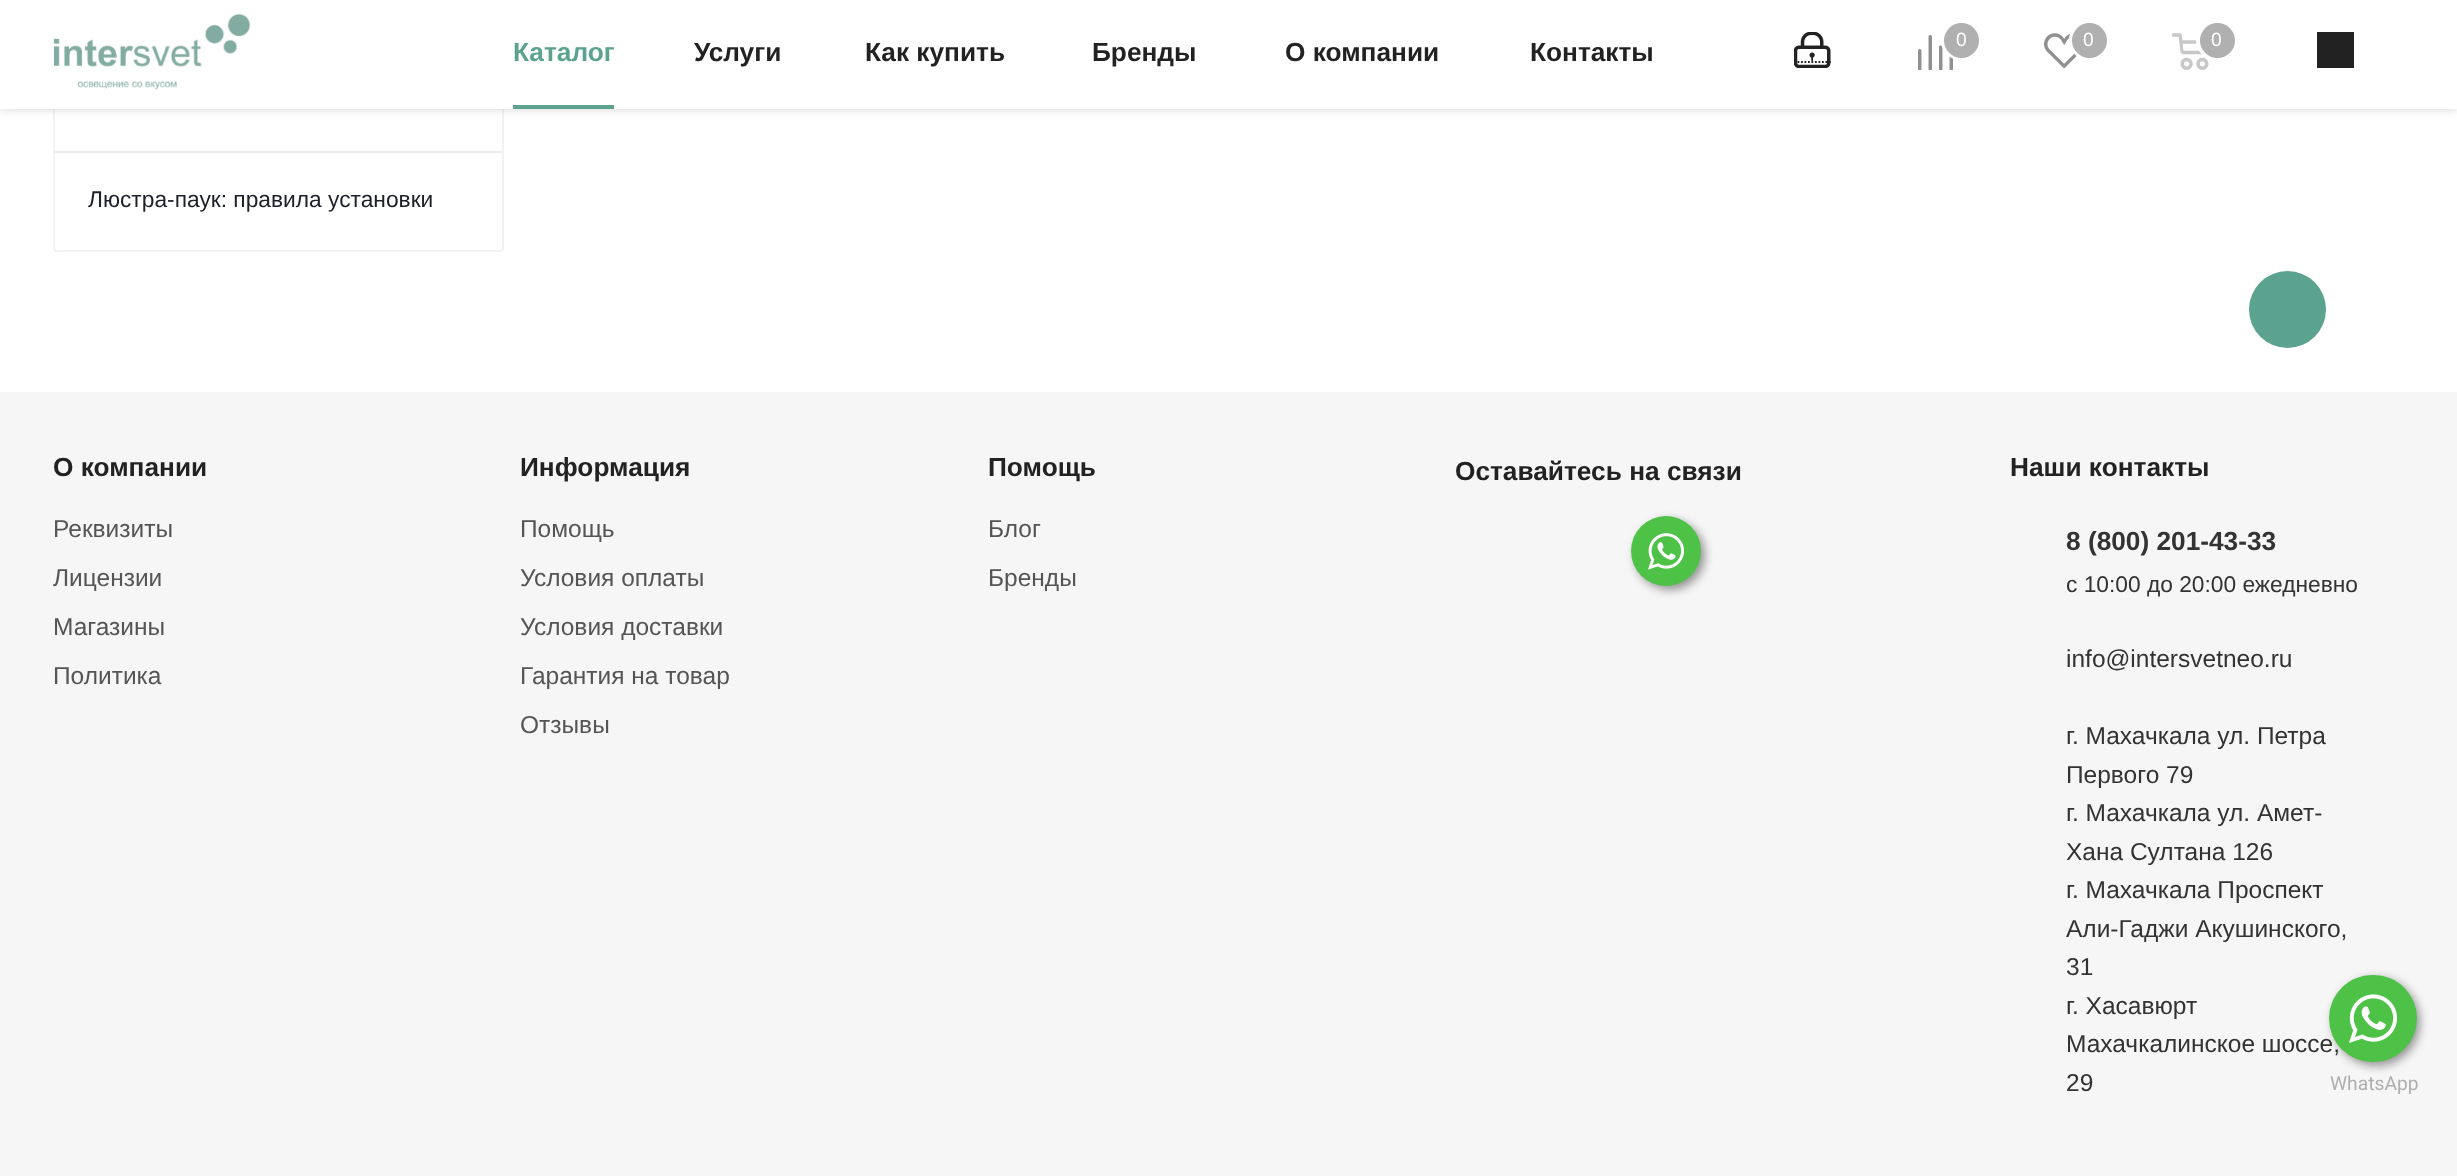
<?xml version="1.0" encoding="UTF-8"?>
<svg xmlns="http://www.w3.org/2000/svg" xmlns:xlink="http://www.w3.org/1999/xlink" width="2457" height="1176">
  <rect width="100%" height="100%" fill="#ffffff" />
  <rect x="54" y="-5" width="449" height="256" rx="3" fill="none" stroke="#f2f2f2" stroke-width="2" />
  <rect y="2" width="2457" height="108" fill="#000000" fill-opacity="0.14" filter="blur(4.5px)" />
  <rect width="2457" height="109" fill="#ffffff" />
  <image x="53" y="14" width="198" height="76" xlink:href="image1.png" />
  <rect x="513" y="105" width="101" height="4" fill="#5ba38f" />
  <path d="M 1794 62 h 36.5" fill="none" stroke="#222222" stroke-width="1.8" stroke-dasharray="1.75 1.75" />
  <image x="1794" y="32" width="37" height="36" xlink:href="image2.png" />
  <image x="1918" y="35" width="35" height="35" xlink:href="image3.png" />
  <circle cx="1962" cy="40" r="19" fill="none" stroke="#ffffff" stroke-width="4" />
  <circle cx="1961.5" cy="40.5" r="17.5" fill="#b0b0b0" />
  <image x="2044" y="33" width="33" height="36" xlink:href="image4.png" />
  <circle cx="2090" cy="40" r="19" fill="none" stroke="#ffffff" stroke-width="4" />
  <circle cx="2089.5" cy="40.5" r="17.5" fill="#b0b0b0" />
  <image x="2172" y="33" width="37" height="37" xlink:href="image5.png" />
  <circle cx="2217" cy="40" r="19" fill="none" stroke="#ffffff" stroke-width="4" />
  <circle cx="2217.5" cy="40.5" r="17.5" fill="#b0b0b0" />
  <rect x="2317" y="32" width="37" height="36" fill="#222222" />
  <rect x="54" y="151" width="448" height="2" fill="#ebeef1" />
  <circle cx="2287.5" cy="309.5" r="38.5" fill="#5ba38f" />
  <rect y="392" width="2457" height="784" fill="#f6f6f7" />
  <rect x="1635" y="520" width="70" height="70" rx="35" fill="#000000" fill-opacity="0.4" filter="blur(5px)" />
  <circle cx="1666" cy="551" r="35" fill="#4dc247" />
  <image x="1648" y="533" width="37" height="37" xlink:href="image6.png" />
  <rect x="2333" y="978" width="87" height="88" rx="43.5" fill="#000000" fill-opacity="0.4" filter="blur(5px)" />
  <text x="513" y="61" style="font-family: Liberation Sans; font-size: 26.25px; font-weight: bold; fill: #5ba38f">Каталог</text>
  <text x="694" y="61" style="font-family: Liberation Sans; font-size: 26.25px; font-weight: bold; fill: #222222">Услуги</text>
  <text x="865" y="61" style="font-family: Liberation Sans; font-size: 26.25px; font-weight: bold; fill: #222222">Как купить</text>
  <text x="1092" y="61" style="font-family: Liberation Sans; font-size: 26.25px; font-weight: bold; fill: #222222">Бренды</text>
  <text x="1285" y="61" style="font-family: Liberation Sans; font-size: 26.25px; font-weight: bold; fill: #222222">О компании</text>
  <text x="1530" y="61" style="font-family: Liberation Sans; font-size: 26.25px; font-weight: bold; fill: #222222">Контакты</text>
  <text x="1956" y="46" style="font-family: Liberation Sans; font-size: 19.25px; fill: #ffffff">0</text>
  <text x="2083" y="46" style="font-family: Liberation Sans; font-size: 19.25px; fill: #ffffff">0</text>
  <text x="2211" y="46" style="font-family: Liberation Sans; font-size: 19.25px; fill: #ffffff">0</text>
  <text x="88" y="207" style="font-family: Liberation Sans; font-size: 22.75px; fill: #1d2029">Люстра-паук: правила установки</text>
  <text x="53" y="476" style="font-family: Liberation Sans; font-size: 26.25px; font-weight: bold; fill: #222222">О компании</text>
  <text x="53" y="537" style="font-family: Liberation Sans; font-size: 24.5px; fill: #555555">Реквизиты</text>
  <text x="53" y="586" style="font-family: Liberation Sans; font-size: 24.5px; fill: #555555">Лицензии</text>
  <text x="53" y="635" style="font-family: Liberation Sans; font-size: 24.5px; fill: #555555">Магазины</text>
  <text x="53" y="684" style="font-family: Liberation Sans; font-size: 24.5px; fill: #555555">Политика</text>
  <text x="520" y="476" style="font-family: Liberation Sans; font-size: 26.25px; font-weight: bold; fill: #222222">Информация</text>
  <text x="520" y="537" style="font-family: Liberation Sans; font-size: 24.5px; fill: #555555">Помощь</text>
  <text x="520" y="586" style="font-family: Liberation Sans; font-size: 24.5px; fill: #555555">Условия оплаты</text>
  <text x="520" y="635" style="font-family: Liberation Sans; font-size: 24.5px; fill: #555555">Условия доставки</text>
  <text x="520" y="684" style="font-family: Liberation Sans; font-size: 24.5px; fill: #555555">Гарантия на товар</text>
  <text x="520" y="733" style="font-family: Liberation Sans; font-size: 24.5px; fill: #555555">Отзывы</text>
  <text x="988" y="476" style="font-family: Liberation Sans; font-size: 26.25px; font-weight: bold; fill: #222222">Помощь</text>
  <text x="988" y="537" style="font-family: Liberation Sans; font-size: 24.5px; fill: #555555">Блог</text>
  <text x="988" y="586" style="font-family: Liberation Sans; font-size: 24.5px; fill: #555555">Бренды</text>
  <text x="1455" y="480" style="font-family: Liberation Sans; font-size: 26.25px; font-weight: bold; fill: #222222">Оставайтесь на связи</text>
  <text x="2010" y="476" style="font-family: Liberation Sans; font-size: 26.25px; font-weight: bold; fill: #222222">Наши контакты</text>
  <text x="2066" y="550" style="font-family: Liberation Sans; font-size: 26.25px; font-weight: bold; fill: #333333">8 (800) 201-43-33</text>
  <text x="2066" y="592" style="font-family: Liberation Sans; font-size: 22.75px; fill: #333333">с 10:00 до 20:00 ежедневно</text>
  <text x="2066" y="667" style="font-family: Liberation Sans; font-size: 24.5px; fill: #333333">info@intersvetneo.ru</text>
  <text x="2066" y="744" style="font-family: Liberation Sans; font-size: 24.5px; fill: #333333">г. Махачкала ул. Петра</text>
  <text x="2066" y="783" style="font-family: Liberation Sans; font-size: 24.5px; fill: #333333">Первого 79</text>
  <text x="2066" y="821" style="font-family: Liberation Sans; font-size: 24.5px; fill: #333333">г. Махачкала ул. Амет-</text>
  <text x="2066" y="860" style="font-family: Liberation Sans; font-size: 24.5px; fill: #333333">Хана Султана 126</text>
  <text x="2066" y="898" style="font-family: Liberation Sans; font-size: 24.5px; fill: #333333">г. Махачкала Проспект</text>
  <text x="2066" y="937" style="font-family: Liberation Sans; font-size: 24.5px; fill: #333333">Али-Гаджи Акушинского,</text>
  <text x="2066" y="975" style="font-family: Liberation Sans; font-size: 24.5px; fill: #333333">31</text>
  <text x="2066" y="1014" style="font-family: Liberation Sans; font-size: 24.5px; fill: #333333">г. Хасавюрт</text>
  <text x="2066" y="1052" style="font-family: Liberation Sans; font-size: 24.5px; fill: #333333">Махачкалинское шоссе,</text>
  <text x="2066" y="1091" style="font-family: Liberation Sans; font-size: 24.5px; fill: #333333">29</text>
  <rect x="2329" y="975" width="88" height="87" rx="43.5" fill="#4dc247" />
  <image x="2349" y="994" width="49" height="49" xlink:href="image7.png" />
  <text x="2330" y="1090" style="font-family: Roboto; font-size: 19.25px; fill: #afafaf">WhatsApp</text>
</svg>
